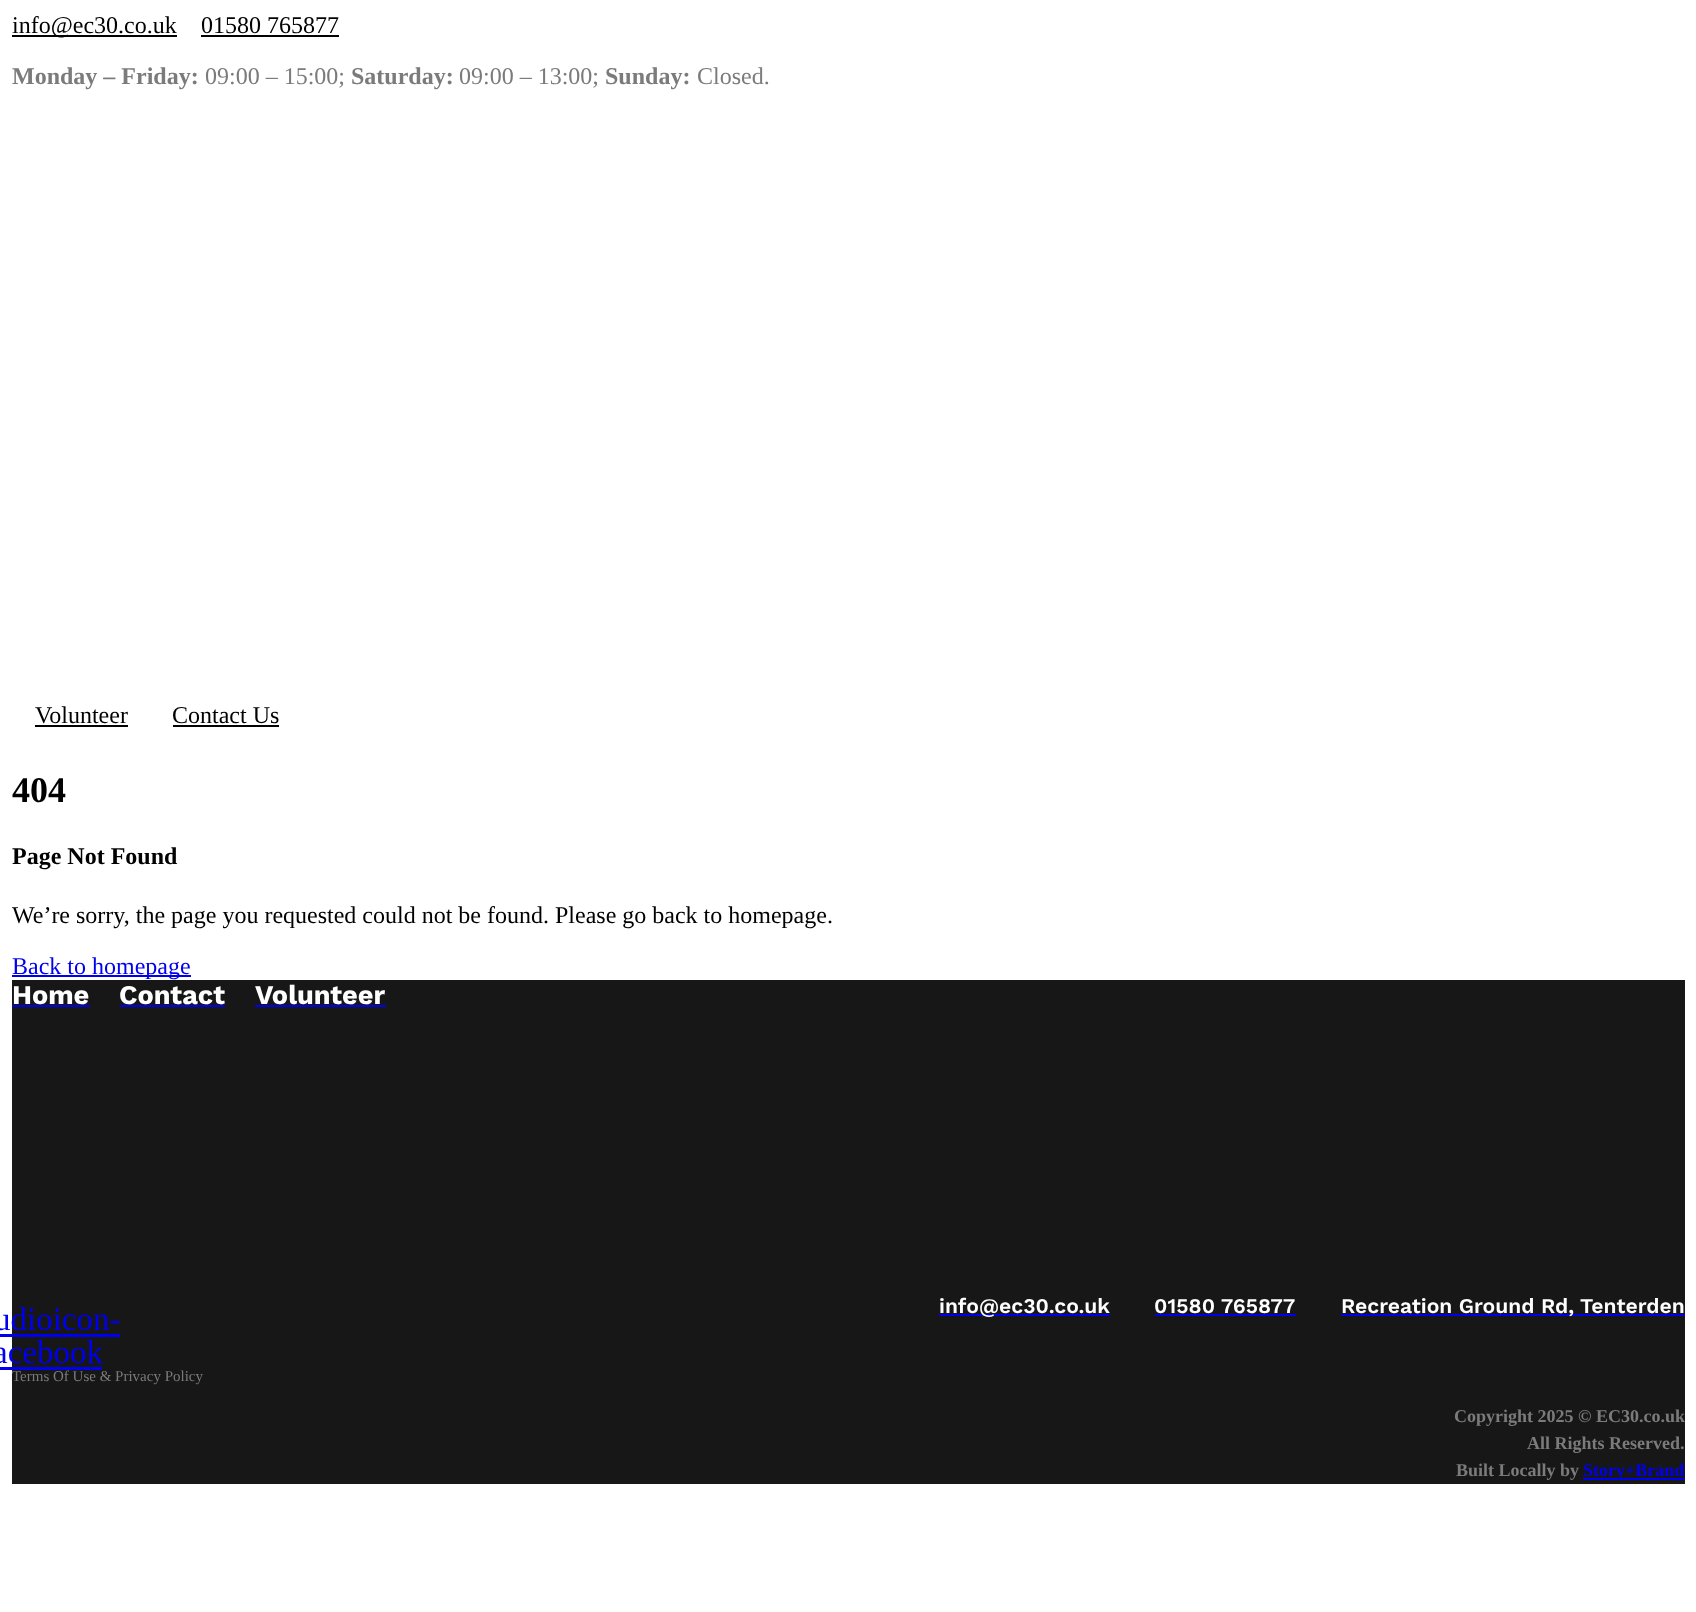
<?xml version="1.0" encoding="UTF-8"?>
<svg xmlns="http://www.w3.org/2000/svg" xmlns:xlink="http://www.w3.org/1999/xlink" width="1696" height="1612">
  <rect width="100%" height="100%" fill="#ffffff" />
  <rect x="12" y="35" width="165" height="2" fill="#000000" />
  <rect x="201" y="35" width="138" height="2" fill="#000000" />
  <rect x="35" y="725" width="93" height="2" fill="#000000" />
  <rect x="173" y="725" width="106" height="2" fill="#000000" />
  <rect x="12" y="975" width="179" height="2" fill="#0000ee" />
  <rect x="12" y="980" width="1673" height="504" fill="#171717" />
  <rect x="12" y="1005" width="78" height="2" fill="#0000ee" />
  <rect x="120" y="1005" width="105" height="2" fill="#0000ee" />
  <rect x="255" y="1005" width="131" height="2" fill="#0000ee" />
  <rect x="939" y="1314" width="171" height="2" fill="#0000ee" />
  <rect x="1155" y="1314" width="141" height="2" fill="#0000ee" />
  <rect x="1341" y="1314" width="344" height="2" fill="#0000ee" />
  <rect y="1334" width="120" height="3" fill="#0000ee" />
  <rect y="1367" width="102" height="3" fill="#0000ee" />
  <rect x="1583" y="1478" width="102" height="2" fill="#0000ee" />
  <text x="12" y="33" style="font-family: Liberation Serif; font-size: 24px; fill: #000000">info@ec30.co.uk</text>
  <text x="201" y="33" style="font-family: Liberation Serif; font-size: 24px; fill: #000000">01580 765877</text>
  <text x="12" y="84" style="font-family: Liberation Serif; font-size: 24px; font-weight: bold; fill: #7b7b7b">Monday – Friday:</text>
  <text x="205" y="84" style="font-family: Liberation Serif; font-size: 24px; fill: #7b7b7b">09:00 – 15:00;</text>
  <text x="351" y="84" style="font-family: Liberation Serif; font-size: 24px; font-weight: bold; fill: #7b7b7b">Saturday:</text>
  <text x="459" y="84" style="font-family: Liberation Serif; font-size: 24px; fill: #7b7b7b">09:00 – 13:00;</text>
  <text x="605" y="84" style="font-family: Liberation Serif; font-size: 24px; font-weight: bold; fill: #7b7b7b">Sunday:</text>
  <text x="697" y="84" style="font-family: Liberation Serif; font-size: 24px; fill: #7b7b7b">Closed.</text>
  <text x="35" y="723" style="font-family: Liberation Serif; font-size: 24px; fill: #000000">Volunteer</text>
  <text x="172" y="723" style="font-family: Liberation Serif; font-size: 24px; fill: #000000">Contact Us</text>
  <text x="12" y="802" style="font-family: Liberation Serif; font-size: 36px; font-weight: bold; fill: #000000">404</text>
  <text x="12" y="864" style="font-family: Liberation Serif; font-size: 24px; font-weight: bold; fill: #000000">Page Not Found</text>
  <text x="12" y="923" style="font-family: Liberation Serif; font-size: 24px; fill: #000000">We’re sorry, the page you requested could not be found. Please go back to homepage.</text>
  <text x="12" y="974" style="font-family: Liberation Serif; font-size: 24px; fill: #0000ee">Back to homepage</text>
  <text x="12" y="1004" style="font-family: Work Sans; font-size: 27px; font-weight: bold; fill: #ffffff">Home</text>
  <text x="119" y="1004" style="font-family: Work Sans; font-size: 27px; font-weight: bold; fill: #ffffff">Contact</text>
  <text x="255" y="1004" style="font-family: Work Sans; font-size: 27px; font-weight: bold; fill: #ffffff">Volunteer</text>
  <text x="939" y="1313" style="font-family: Work Sans; font-size: 21px; font-weight: 600; fill: #ffffff">info@ec30.co.uk</text>
  <text x="1154" y="1313" style="font-family: Work Sans; font-size: 21px; font-weight: 600; fill: #ffffff">01580 765877</text>
  <text x="1341" y="1313" style="font-family: Work Sans; font-size: 21px; font-weight: 600; fill: #ffffff">Recreation Ground Rd, Tenterden</text>
  <text x="-6" y="1330" style="font-family: Liberation Serif; font-size: 33px; fill: #0000ee">udioicon-</text>
  <text x="-7" y="1363" style="font-family: Liberation Serif; font-size: 33px; fill: #0000ee">acebook</text>
  <text x="12" y="1381" style="font-family: Liberation Serif; font-size: 15px; fill: #7b7b7b">Terms Of Use &amp; Privacy Policy</text>
  <text x="1454" y="1422" style="font-family: Liberation Serif; font-size: 18px; font-weight: bold; fill: #7b7b7b">Copyright 2025 © EC30.co.uk</text>
  <text x="1527" y="1449" style="font-family: Liberation Serif; font-size: 18px; font-weight: bold; fill: #7b7b7b">All Rights Reserved.</text>
  <text x="1456" y="1476" style="font-family: Liberation Serif; font-size: 18px; font-weight: bold; fill: #7b7b7b">Built Locally by</text>
  <text x="1583" y="1476" style="font-family: Liberation Serif; font-size: 18px; font-weight: bold; fill: #0000ee">Story+Brand</text>
</svg>
